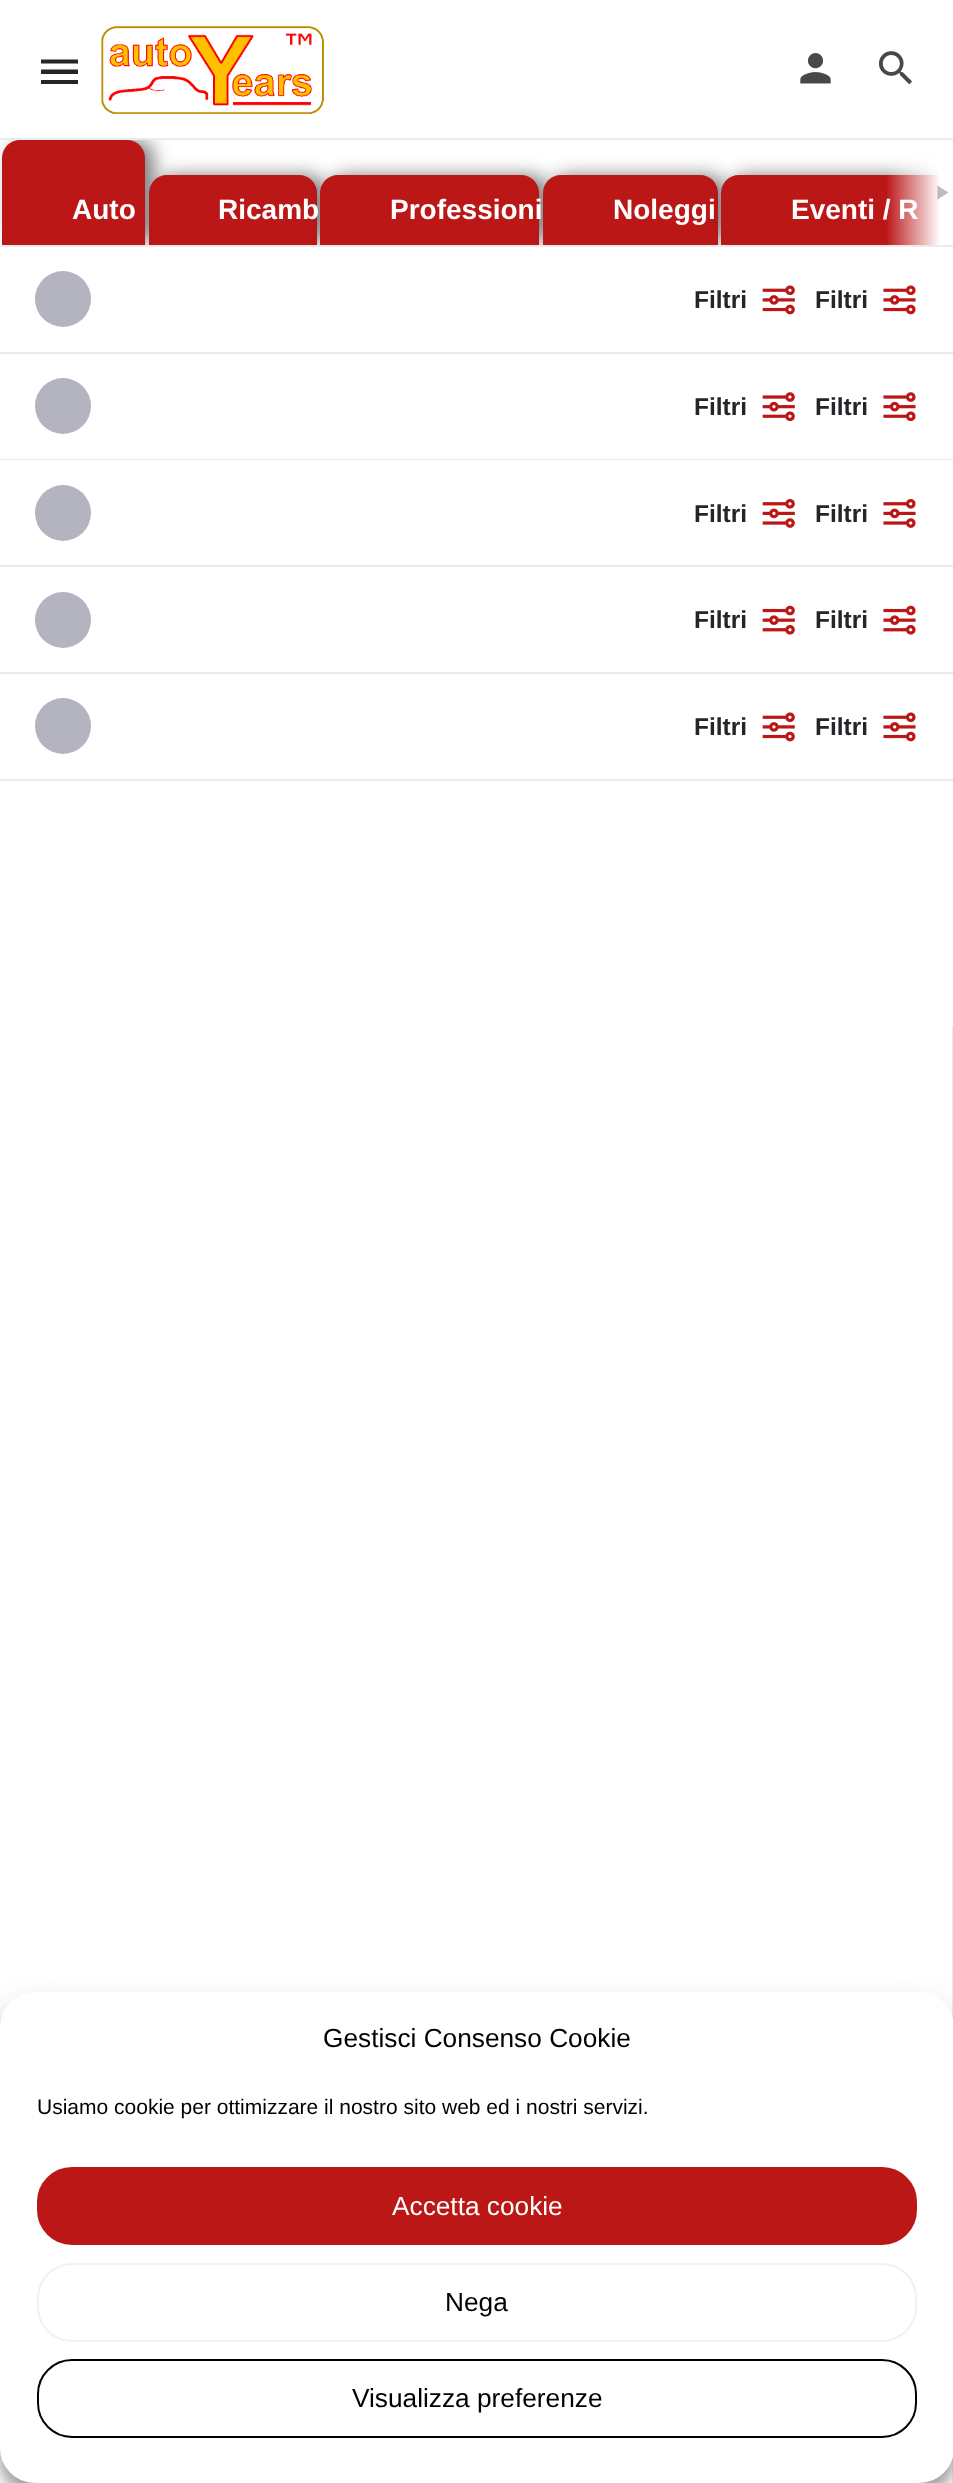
<?xml version="1.0" encoding="UTF-8"?>
<svg xmlns="http://www.w3.org/2000/svg" xmlns:xlink="http://www.w3.org/1999/xlink" width="953" height="2483">
  <defs>
    <clipPath id="clip1"><rect x="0" y="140" width="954" height="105" /></clipPath>
    <linearGradient id="g1" gradientUnits="userSpaceOnUse" x1="886" y1="193" x2="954" y2="193"><stop offset="0" stop-color="#ffffff" stop-opacity="0" /><stop offset="0.8" stop-color="#ffffff" /></linearGradient>
  </defs>
  <rect width="100%" height="100%" fill="#ffffff" />
  <path d="M 41 59.5 h 37 v 4 h -37 z m 0 14.5 v -4.5 h 37 v 4.5 z m 0 10 v -4 h 37 v 4 z" fill="#242429" />
  <rect y="245" width="953" height="2" fill="#ebebeb" />
  <circle cx="63" cy="299" r="28" fill="#b4b4c1" />
  <g clip-path="url(#clip1)">
    <rect x="11" y="140" width="143" height="105" rx="18" fill="#000000" fill-opacity="0.5" filter="blur(9px)" />
  </g>
  <image x="101" y="26" width="223" height="88" xlink:href="image1.png" />
  <image x="800" y="53" width="31" height="31" xlink:href="image2.png" />
  <image x="878" y="51" width="34" height="34" xlink:href="image3.png" />
  <rect y="138" width="953" height="2" fill="#ebebeb" />
  <path d="M 20 140 h 107 c 10 0 18 8 18 18 v 87 h -143 v -87 c 0 -10 8 -18 18 -18 z" fill="#bc1717" />
  <g clip-path="url(#clip1)">
    <rect x="158" y="175" width="168" height="70" rx="18" fill="#000000" fill-opacity="0.5" filter="blur(9px)" />
  </g>
  <path d="M 167 175 h 132 c 10 0 18 8 18 18 v 52 h -168 v -52 c 0 -10 8 -18 18 -18 z" fill="#bc1717" />
  <g clip-path="url(#clip1)">
    <rect x="329" y="175" width="219" height="70" rx="18" fill="#000000" fill-opacity="0.5" filter="blur(9px)" />
  </g>
  <path d="M 338 175 h 183 c 10 0 18 8 18 18 v 52 h -219 v -52 c 0 -10 8 -18 18 -18 z" fill="#bc1717" />
  <g clip-path="url(#clip1)">
    <rect x="551" y="175" width="175" height="70" rx="18" fill="#000000" fill-opacity="0.5" filter="blur(9px)" />
  </g>
  <path d="M 561 175 h 139 c 10 0 18 8 18 18 v 52 h -175 v -52 c 0 -10 8 -18 18 -18 z" fill="#bc1717" />
  <g clip-path="url(#clip1)">
    <rect x="730" y="175" width="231" height="70" rx="18" fill="#000000" fill-opacity="0.5" filter="blur(9px)" />
  </g>
  <path d="M 739 175 h 195 c 10 0 18 8 18 18 v 52 h -231 v -52 c 0 -10 8 -18 18 -18 z" fill="#bc1717" />
  <rect y="352" width="953" height="2" fill="#ebebeb" />
  <image x="762" y="285" width="33" height="30" xlink:href="image4.png" />
  <image x="883" y="285" width="33" height="30" xlink:href="image5.png" />
  <rect y="459" width="953" height="1" fill="#ebebeb" />
  <circle cx="63" cy="406" r="28" fill="#b4b4c1" />
  <image x="762" y="392" width="33" height="30" xlink:href="image6.png" />
  <image x="883" y="392" width="33" height="30" xlink:href="image7.png" />
  <rect y="565" width="953" height="2" fill="#ebebeb" />
  <circle cx="63" cy="513" r="28" fill="#b4b4c1" />
  <image x="762" y="499" width="33" height="29" xlink:href="image8.png" />
  <image x="883" y="499" width="33" height="29" xlink:href="image9.png" />
  <rect y="672" width="953" height="2" fill="#ebebeb" />
  <circle cx="63" cy="620" r="28" fill="#b4b4c1" />
  <image x="762" y="605" width="33" height="30" xlink:href="image10.png" />
  <image x="883" y="605" width="33" height="30" xlink:href="image11.png" />
  <rect y="779" width="953" height="2" fill="#ebebeb" />
  <circle cx="63" cy="726" r="28" fill="#b4b4c1" />
  <image x="762" y="712" width="33" height="30" xlink:href="image4.png" />
  <image x="883" y="712" width="33" height="30" xlink:href="image5.png" />
  <rect x="952" y="1026" width="1" height="1457" fill="#ebebeb" />
  <rect y="2002" width="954" height="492" rx="35" fill="#000000" fill-opacity="0.23" filter="blur(5px)" />
  <rect y="2009" width="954" height="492" rx="35" fill="#000000" fill-opacity="0.19" filter="blur(17.5px)" />
  <rect x="1" y="1993" width="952" height="489" rx="34" fill="#ffffff" stroke="#ffffff" stroke-width="2" />
  <rect x="38" y="2168" width="878" height="76" rx="34" fill="#bc1717" stroke="#bc1717" stroke-width="2" />
  <rect x="38" y="2264" width="878" height="77" rx="34" fill="none" stroke="#f1f1f1" stroke-width="2" />
  <rect x="38" y="2360" width="878" height="77" rx="34" fill="none" stroke="#000000" stroke-width="2" />
  <text x="72" y="219" style="font-family: Liberation Sans; font-size: 28px; font-weight: bold; fill: #ffffff">Auto</text>
  <text x="218" y="219" style="font-family: Liberation Sans; font-size: 28px; font-weight: bold; fill: #ffffff">Ricamb</text>
  <text x="390" y="219" style="font-family: Liberation Sans; font-size: 28px; font-weight: bold; fill: #ffffff">Professioni</text>
  <text x="613" y="219" style="font-family: Liberation Sans; font-size: 28px; font-weight: bold; fill: #ffffff">Noleggi</text>
  <text x="791" y="219" style="font-family: Liberation Sans; font-size: 28px; font-weight: bold; fill: #ffffff">Eventi / R</text>
  <rect x="887" y="157" width="66" height="88" fill="url(#g1)" />
  <path d="M 937.5 185.5 l 11 7 l -11 7 z" fill="#242429" fill-opacity="0.3" />
  <text x="694" y="308" style="font-family: Liberation Sans; font-size: 24.5px; font-weight: bold; fill: #242429">Filtri</text>
  <text x="815" y="308" style="font-family: Liberation Sans; font-size: 24.5px; font-weight: bold; fill: #242429">Filtri</text>
  <text x="694" y="415" style="font-family: Liberation Sans; font-size: 24.5px; font-weight: bold; fill: #242429">Filtri</text>
  <text x="815" y="415" style="font-family: Liberation Sans; font-size: 24.5px; font-weight: bold; fill: #242429">Filtri</text>
  <text x="694" y="522" style="font-family: Liberation Sans; font-size: 24.5px; font-weight: bold; fill: #242429">Filtri</text>
  <text x="815" y="522" style="font-family: Liberation Sans; font-size: 24.5px; font-weight: bold; fill: #242429">Filtri</text>
  <text x="694" y="628" style="font-family: Liberation Sans; font-size: 24.5px; font-weight: bold; fill: #242429">Filtri</text>
  <text x="815" y="628" style="font-family: Liberation Sans; font-size: 24.5px; font-weight: bold; fill: #242429">Filtri</text>
  <text x="694" y="735" style="font-family: Liberation Sans; font-size: 24.5px; font-weight: bold; fill: #242429">Filtri</text>
  <text x="815" y="735" style="font-family: Liberation Sans; font-size: 24.5px; font-weight: bold; fill: #242429">Filtri</text>
  <text x="323" y="2047" style="font-family: Liberation Sans; font-size: 26.25px; fill: #000000">Gestisci Consenso Cookie</text>
  <text x="37" y="2114" style="font-family: Liberation Sans; font-size: 21px; fill: #000000">Usiamo cookie per ottimizzare il nostro sito web ed i nostri servizi.</text>
  <text x="392" y="2215" style="font-family: Liberation Sans; font-size: 26.25px; fill: #ffffff">Accetta cookie</text>
  <text x="445" y="2311" style="font-family: Liberation Sans; font-size: 26.25px; fill: #000000">Nega</text>
  <text x="352" y="2407" style="font-family: Liberation Sans; font-size: 26.25px; fill: #000000">Visualizza preferenze</text>
</svg>
